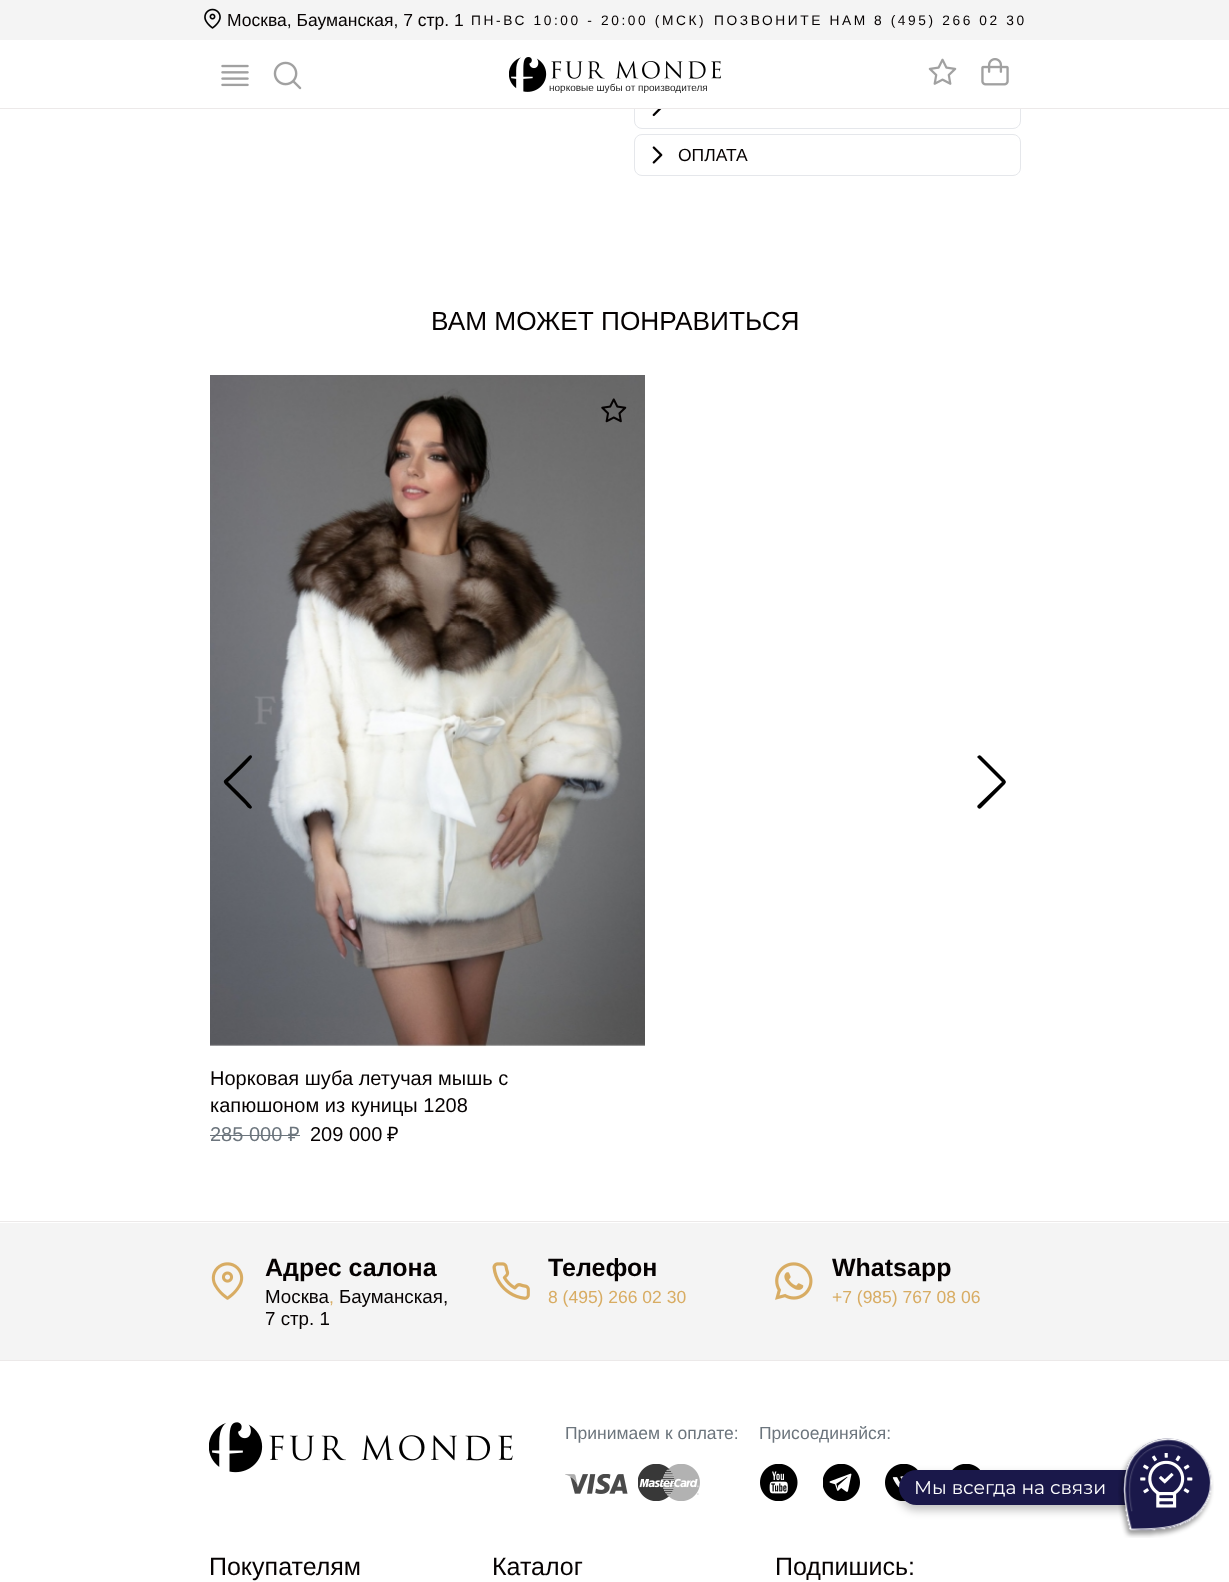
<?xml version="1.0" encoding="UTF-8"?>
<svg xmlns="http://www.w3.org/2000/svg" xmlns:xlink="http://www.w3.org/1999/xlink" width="1229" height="1582">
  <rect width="100%" height="100%" fill="#ffffff" />
  <rect width="1229" height="40" fill="#f4f4f4" />
  <image x="204" y="8" width="17" height="21" xlink:href="image1.png" />
  <rect x="634.5" y="86.5" width="386" height="42" rx="7.5" fill="none" stroke="#e5e7eb" />
  <rect x="634" y="86" width="387" height="22" fill="#ffffff" />
  <rect y="108" width="1229" height="1" fill="#ece9e9" />
  <image x="221" y="64" width="28" height="23" xlink:href="image2.png" />
  <image x="273" y="61" width="29" height="29" xlink:href="image3.png" />
  <image x="509" y="57" width="212" height="35" xlink:href="image4.png" />
  <image x="928" y="58" width="29" height="27" xlink:href="image5.png" />
  <image x="981" y="58" width="28" height="28" xlink:href="image6.png" />
  <image x="652" y="109" width="10" height="8" xlink:href="image7.png" />
  <rect x="634.5" y="134.5" width="386" height="41" rx="7.5" fill="none" stroke="#e5e7eb" />
  <image x="652" y="146" width="11" height="18" xlink:href="image8.png" />
  <image x="210" y="375" width="435" height="672" xlink:href="image9.png" />
  <path d="M 249 756 c 1 -1 3 -1 3 1 c 0 2 -21 22 -24 25 c 3 3 24 23 24 25 c -1 4 -5 0 -7 -3 l -16 -16 c -7 -7 -7 -6 0 -12 z" fill="#000000" />
  <path d="M 978 808 c -1 -1 -1 -2 0 -3 l 24 -23 l -24 -24 c -1 -1 -1 -1 0 -2 c 1 -1 2 -1 3 0 l 24 24 l 1 2 l -1 2 l -24 24 c -1 1 -2 1 -3 0 z" fill="#000000" />
  <image x="601" y="398" width="26" height="25" xlink:href="image10.png" />
  <rect x="210" y="1135" width="73" height="1" fill="#6c757d" />
  <rect x="283" y="1135" width="17" height="1" fill="#6c757d" />
  <rect y="1221" width="1229" height="1" fill="#ece9e9" />
  <rect y="1223" width="1229" height="137" fill="#f4f4f4" />
  <rect y="1360" width="1229" height="1" fill="#ece9e9" />
  <image x="211" y="1262" width="33" height="38" xlink:href="image11.png" />
  <image x="492" y="1262" width="38" height="38" xlink:href="image12.png" />
  <image x="775" y="1262" width="38" height="38" xlink:href="image13.png" />
  <image x="209" y="1422" width="304" height="51" xlink:href="image14.png" />
  <image x="565" y="1474" width="63" height="20" xlink:href="image15.png" />
  <image x="638" y="1464" width="62" height="37" xlink:href="image16.png" />
  <image x="760" y="1464" width="38" height="37" xlink:href="image17.png" />
  <image x="823" y="1464" width="37" height="37" xlink:href="image18.png" />
  <image x="885" y="1464" width="33" height="37" xlink:href="image19.png" />
  <image x="952" y="1464" width="28" height="6" xlink:href="image20.png" />
  <rect x="899" y="1475" width="247" height="35" rx="17.5" fill="#000000" fill-opacity="0.25" filter="blur(5px)" />
  <rect x="899" y="1470" width="247" height="35" rx="17.5" fill="#1a184a" />
  <image x="1118" y="1438" width="96" height="100" xlink:href="image21.png" />
  <image x="1140" y="1453" width="53" height="55" xlink:href="image22.png" />
  <text x="227" y="26" style="font-family: Liberation Sans; font-size: 17.5px; fill: #050101">Москва, Бауманская, 7 стр. 1</text>
  <text x="471" y="25" style="font-family: Liberation Sans; font-size: 13.75px; letter-spacing: 2.6px; fill: #050101">ПН-ВС 10:00 - 20:00 (МСК)</text>
  <text x="714" y="25" style="font-family: Liberation Sans; font-size: 13.75px; letter-spacing: 2.6px; fill: #050101">ПОЗВОНИТЕ НАМ</text>
  <text x="874" y="25" style="font-family: Liberation Sans; font-size: 13.75px; letter-spacing: 2.6px; fill: #050101">8 (495) 266 02 30</text>
  <text x="549" y="91" style="font-family: Liberation Sans; font-size: 10px; fill: #1e1e1e">норковые шубы от производителя</text>
  <text x="678" y="161" style="font-family: Liberation Sans; font-size: 17.5px; fill: #050101">ОПЛАТА</text>
  <text x="431" y="330" style="font-family: Liberation Sans; font-size: 26.25px; fill: #050101">ВАМ МОЖЕТ ПОНРАВИТЬСЯ</text>
  <text x="210" y="1085" style="font-family: Liberation Sans; font-size: 20px; fill: #050101">Норковая шуба летучая мышь с</text>
  <text x="210" y="1112" style="font-family: Liberation Sans; font-size: 20px; fill: #050101">капюшоном из куницы 1208</text>
  <text x="210" y="1141" style="font-family: Liberation Sans; font-size: 20px; fill: #6c757d">285 000</text>
  <text x="288" y="1141" style="font-family: Noto Sans; font-size: 20px; fill: #6c757d">₽</text>
  <text x="310" y="1141" style="font-family: Liberation Sans; font-size: 20px; fill: #050101">209 000</text>
  <text x="387" y="1141" style="font-family: Noto Sans; font-size: 20px; fill: #050101">₽</text>
  <text x="265" y="1276" style="font-family: Liberation Sans; font-size: 25px; font-weight: bold; fill: #050101">Адрес салона</text>
  <text x="265" y="1303" style="font-family: Liberation Sans; font-size: 18.75px; fill: #050101">Москва</text>
  <text x="329" y="1303" style="font-family: Liberation Sans; font-size: 17.5px; fill: #d8ac63">,</text>
  <text x="339" y="1303" style="font-family: Liberation Sans; font-size: 18.75px; fill: #050101">Бауманская,</text>
  <text x="265" y="1325" style="font-family: Liberation Sans; font-size: 18.75px; fill: #050101">7 стр. 1</text>
  <text x="548" y="1276" style="font-family: Liberation Sans; font-size: 25px; font-weight: bold; fill: #050101">Телефон</text>
  <text x="548" y="1303" style="font-family: Liberation Sans; font-size: 17.5px; fill: #d8ac63">8 (495) 266 02 30</text>
  <text x="832" y="1276" style="font-family: Liberation Sans; font-size: 25px; font-weight: bold; fill: #050101">Whatsapp</text>
  <text x="832" y="1303" style="font-family: Liberation Sans; font-size: 17.5px; fill: #d8ac63">+7 (985) 767 08 06</text>
  <text x="565" y="1439" style="font-family: Liberation Sans; font-size: 17.5px; fill: #6c757d">Принимаем к оплате:</text>
  <text x="759" y="1439" style="font-family: Liberation Sans; font-size: 17.5px; fill: #6c757d">Присоединяйся:</text>
  <text x="209" y="1575" style="font-family: Liberation Sans; font-size: 25px; fill: #050101">Покупателям</text>
  <text x="492" y="1575" style="font-family: Liberation Sans; font-size: 25px; fill: #050101">Каталог</text>
  <text x="775" y="1575" style="font-family: Liberation Sans; font-size: 25px; fill: #050101">Подпишись:</text>
  <text x="914" y="1494" style="font-family: Montserrat; font-size: 18.75px; fill: #ffffff">Мы всегда на связи</text>
</svg>
